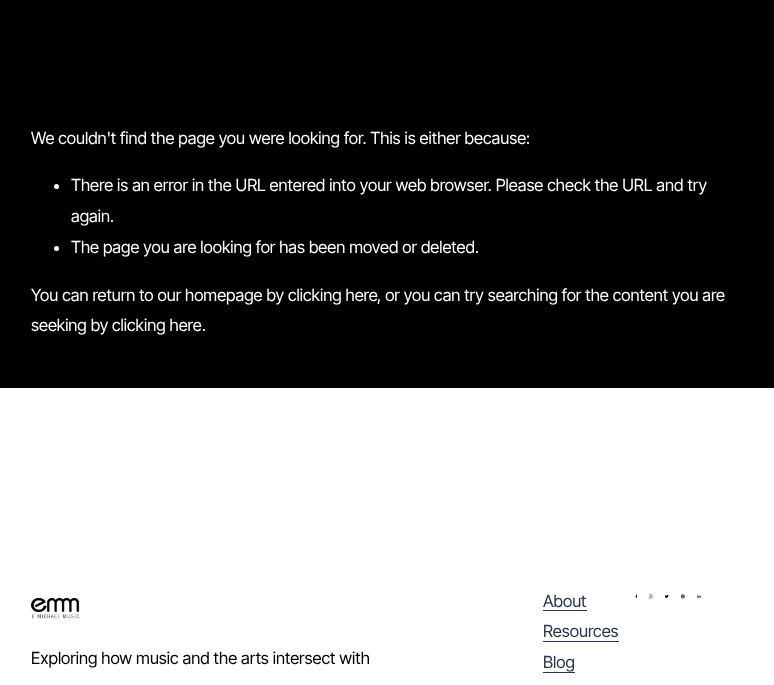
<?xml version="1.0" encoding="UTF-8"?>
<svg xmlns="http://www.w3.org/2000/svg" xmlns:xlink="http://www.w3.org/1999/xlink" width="774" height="685">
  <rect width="100%" height="100%" fill="#000000" />
  <circle cx="56.5" cy="186.5" r="2.5" fill="#ffffff" />
  <circle cx="56.5" cy="248.5" r="2.5" fill="#ffffff" />
  <rect y="388" width="774" height="297" fill="#ffffff" />
  <rect x="543" y="610" width="44" height="1" fill="#253551" />
  <rect x="543" y="641" width="76" height="1" fill="#253551" />
  <rect x="543" y="672" width="32" height="1" fill="#253551" />
  <image x="635" y="594" width="2" height="5" xlink:href="image1.png" />
  <image x="649" y="594" width="4" height="5" xlink:href="image2.png" />
  <image x="665" y="594" width="4" height="4" xlink:href="image3.png" />
  <image x="681" y="594" width="4" height="5" xlink:href="image4.png" />
  <image x="697" y="594" width="4" height="4" xlink:href="image5.png" />
  <image x="31" y="598" width="49" height="21" xlink:href="image6.png" />
  <text x="31" y="144" style="font-family: Inter Tight; font-size: 16.75px; fill: #ffffff">We couldn't find the page you were looking for. This is either because:</text>
  <text x="71" y="191" style="font-family: Inter Tight; font-size: 16.75px; fill: #ffffff">There is an error in the URL entered into your web browser. Please check the URL and try</text>
  <text x="71" y="222" style="font-family: Inter Tight; font-size: 16.75px; fill: #ffffff">again.</text>
  <text x="71" y="253" style="font-family: Inter Tight; font-size: 16.75px; fill: #ffffff">The page you are looking for has been moved or deleted.</text>
  <text x="31" y="301" style="font-family: Inter Tight; font-size: 16.75px; fill: #ffffff">You can return to our homepage by</text>
  <text x="288" y="301" style="font-family: Inter Tight; font-size: 16.75px; fill: #ffffff">clicking here</text>
  <text x="377" y="301" style="font-family: Inter Tight; font-size: 16.75px; fill: #ffffff">, or you can try searching for the content you are</text>
  <text x="31" y="331" style="font-family: Inter Tight; font-size: 16.75px; fill: #ffffff">seeking by</text>
  <text x="112" y="331" style="font-family: Inter Tight; font-size: 16.75px; fill: #ffffff">clicking here</text>
  <text x="202" y="331" style="font-family: Inter Tight; font-size: 16.75px; fill: #ffffff">.</text>
  <text x="543" y="607" style="font-family: Inter Tight; font-size: 16.75px; fill: #253551">About</text>
  <text x="543" y="637" style="font-family: Inter Tight; font-size: 16.75px; fill: #253551">Resources</text>
  <text x="543" y="668" style="font-family: Inter Tight; font-size: 16.75px; fill: #253551">Blog</text>
  <text x="31" y="664" style="font-family: Inter Tight; font-size: 16.75px; fill: #000000">Exploring how music and the arts intersect with</text>
</svg>
